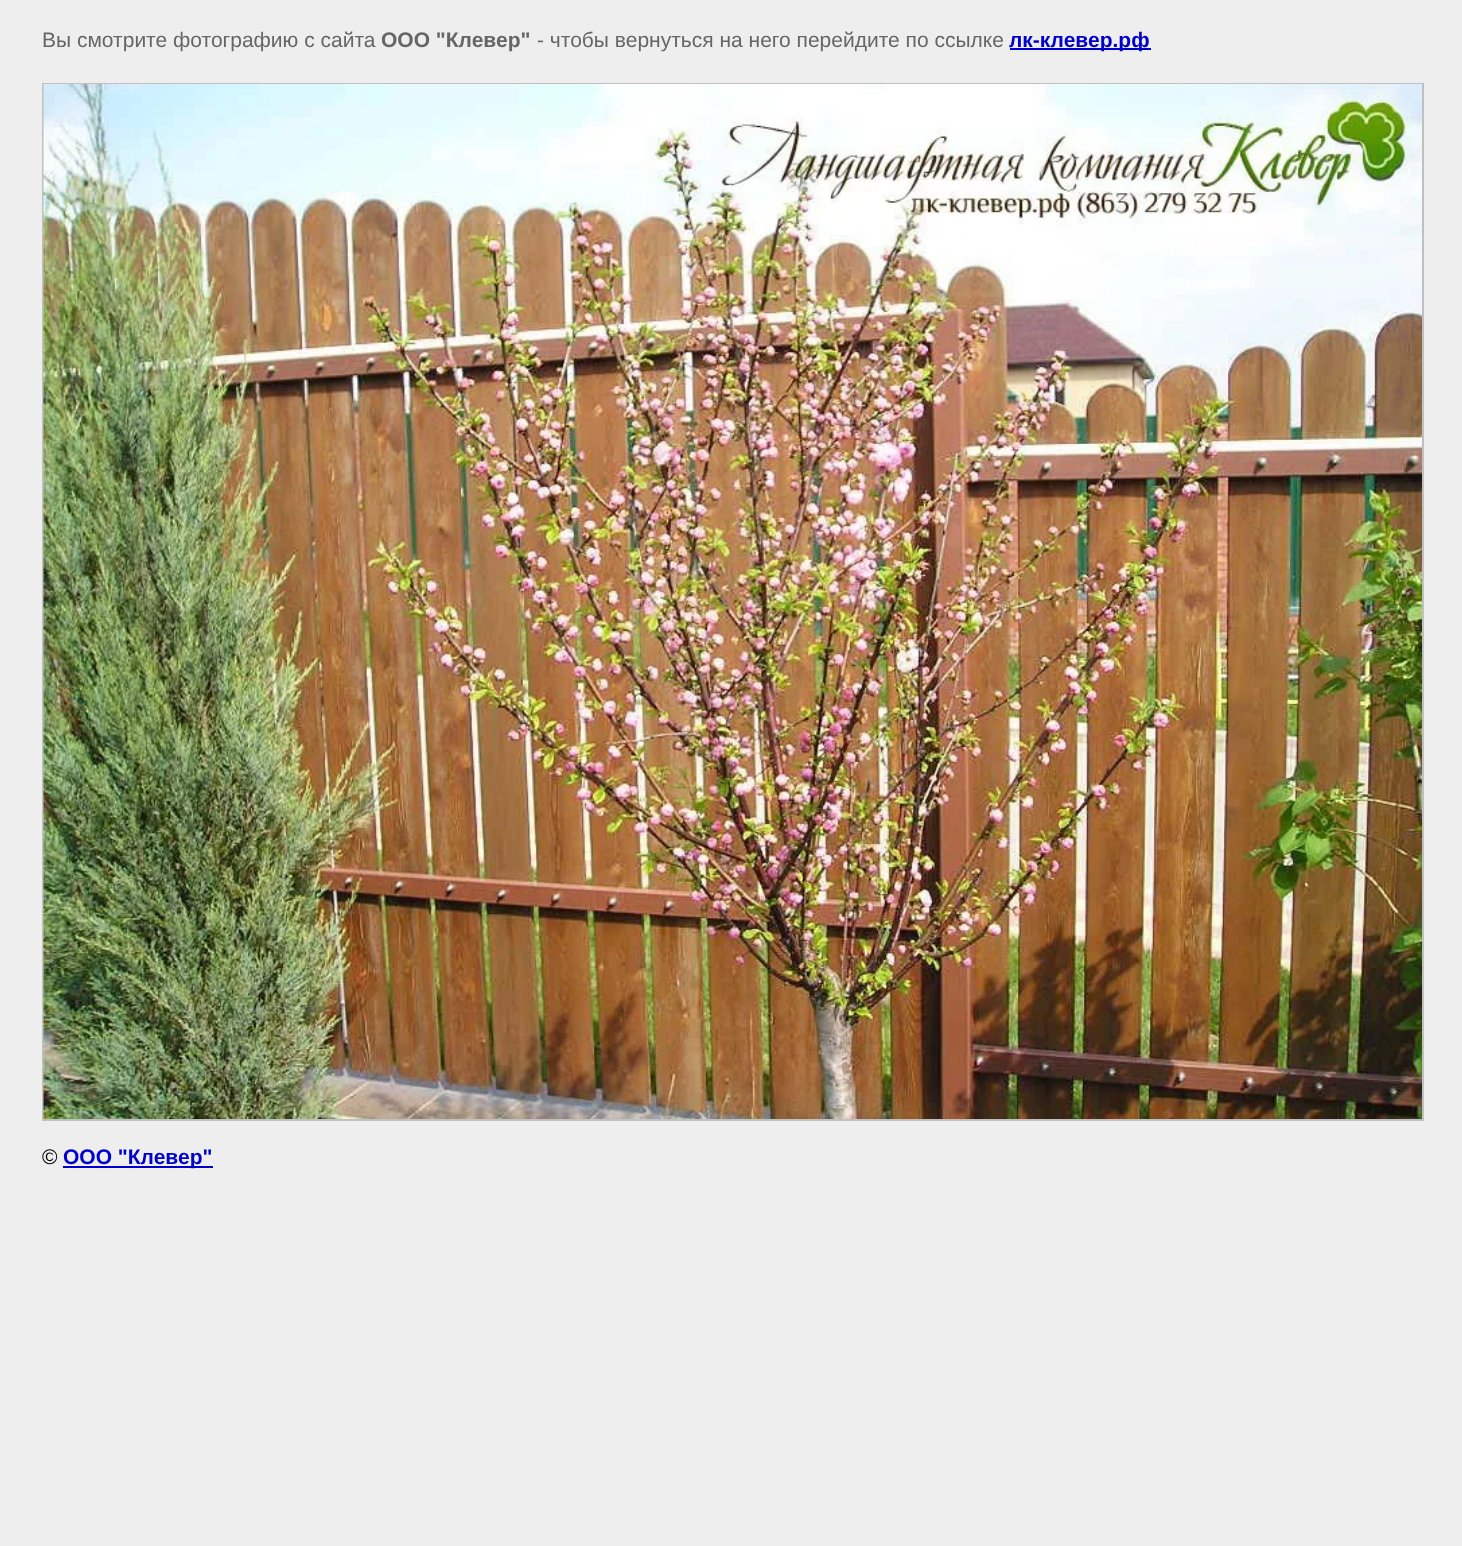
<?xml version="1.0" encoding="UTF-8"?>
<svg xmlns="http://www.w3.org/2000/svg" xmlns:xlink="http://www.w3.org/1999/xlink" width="1462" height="1546">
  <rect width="100%" height="100%" fill="#eeeeee" />
  <rect x="1010" y="48" width="141" height="2" fill="#0000cc" />
  <rect x="43" y="84" width="1380" height="1036" fill="none" stroke="#c0c0c0" stroke-width="2" />
  <image x="43" y="84" width="1379" height="1035" xlink:href="image1.png" />
  <rect x="63" y="1166" width="150" height="2" fill="#0000cc" />
  <text x="42" y="47" style="font-family: Liberation Sans; font-size: 21px; fill: #666666">Вы смотрите фотографию с сайта</text>
  <text x="381" y="47" style="font-family: Liberation Sans; font-size: 21px; font-weight: bold; fill: #666666">ООО "Клевер"</text>
  <text x="537" y="47" style="font-family: Liberation Sans; font-size: 21px; fill: #666666">- чтобы вернуться на него перейдите по ссылке</text>
  <text x="1009" y="47" style="font-family: Liberation Sans; font-size: 21px; font-weight: bold; fill: #0000cc">лк-клевер.рф</text>
  <text x="42" y="1164" style="font-family: Liberation Sans; font-size: 21px; fill: #000000">©</text>
  <text x="63" y="1164" style="font-family: Liberation Sans; font-size: 21px; font-weight: bold; fill: #0000cc">ООО "Клевер"</text>
</svg>
